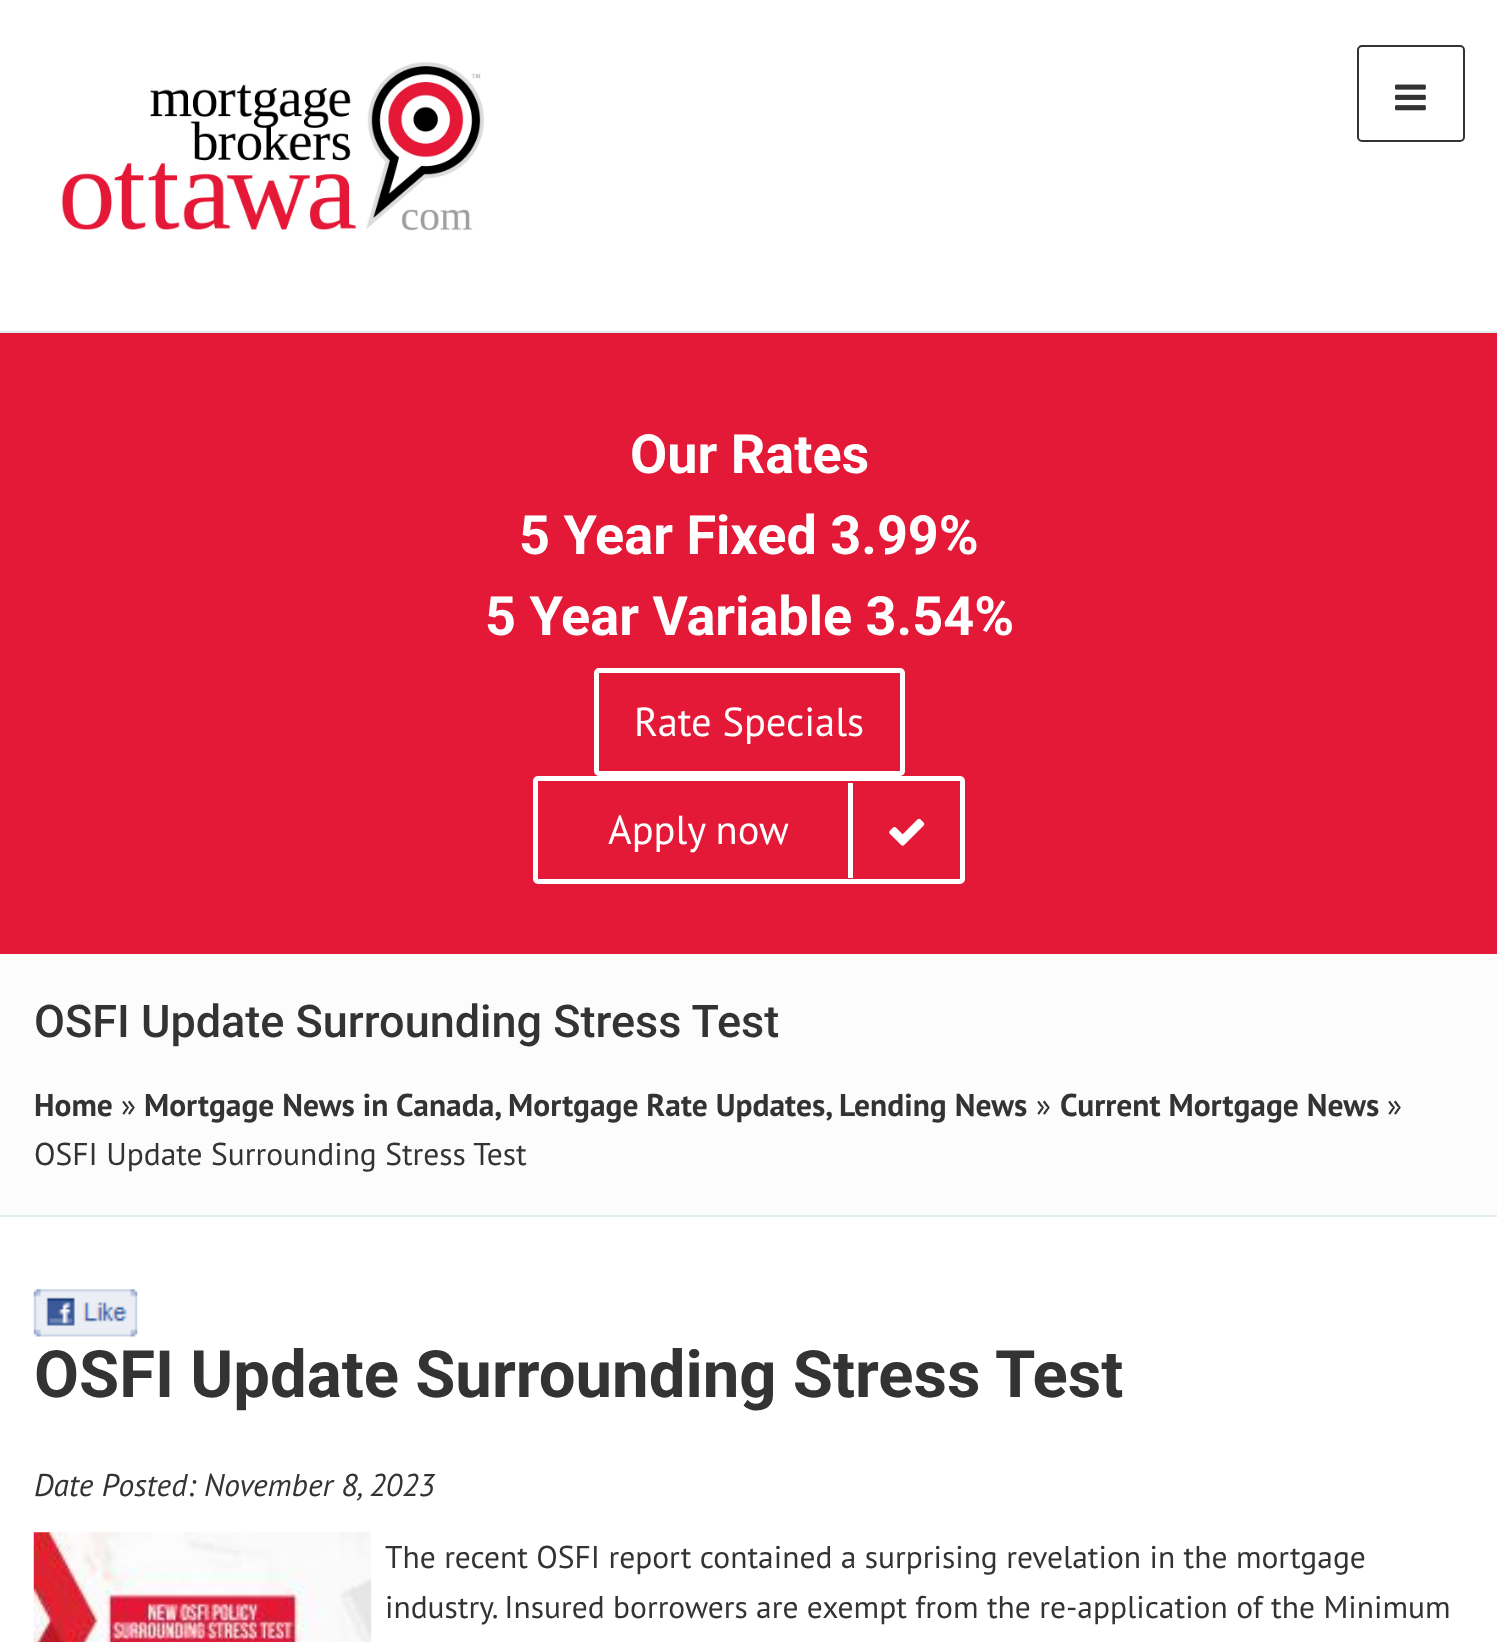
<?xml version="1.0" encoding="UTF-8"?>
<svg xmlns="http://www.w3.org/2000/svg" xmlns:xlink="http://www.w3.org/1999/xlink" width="1497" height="1642">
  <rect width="100%" height="100%" fill="#ffffff" />
  <rect y="331" width="1497" height="2" fill="#e0eded" />
  <image x="61" y="62" width="424" height="169" xlink:href="image1.png" />
  <rect x="1358" y="46" width="106" height="95" rx="4" fill="none" stroke="#333333" stroke-width="2" />
  <image x="1395" y="84" width="31" height="27" xlink:href="image2.png" />
  <rect y="333" width="1497" height="621" fill="#e31937" />
  <rect x="596.5" y="670.5" width="306" height="103" rx="2.5" fill="none" stroke="#ffffff" stroke-width="5" />
  <rect x="535.5" y="778.5" width="427" height="103" rx="2.5" fill="none" stroke="#ffffff" stroke-width="5" />
  <rect x="848" y="783" width="5" height="95" fill="#ffffff" />
  <image x="889" y="818" width="36" height="28" xlink:href="image3.png" />
  <rect y="954" width="1497" height="261" fill="#fcfcfc" />
  <rect y="1215" width="1497" height="2" fill="#e0eded" />
  <image x="33" y="1289" width="105" height="48" xlink:href="image4.png" />
  <image x="33" y="1532" width="339" height="110" xlink:href="image5.png" />
  <text x="630" y="473" style="font-family: Roboto; font-size: 54px; font-weight: bold; fill: #ffffff">Our Rates</text>
  <text x="519" y="554" style="font-family: Roboto; font-size: 54px; font-weight: bold; fill: #ffffff">5 Year Fixed 3.99%</text>
  <text x="485" y="635" style="font-family: Roboto; font-size: 54px; font-weight: bold; fill: #ffffff">5 Year Variable 3.54%</text>
  <text x="634" y="736" style="font-family: PT Sans; font-size: 40.5px; fill: #ffffff">Rate Specials</text>
  <text x="608" y="844" style="font-family: PT Sans; font-size: 40.5px; fill: #ffffff">Apply now</text>
  <text x="34" y="1037" style="font-family: Roboto; font-size: 45px; font-weight: 500; fill: #333333">OSFI Update Surrounding Stress Test</text>
  <text x="34" y="1116" style="font-family: PT Sans; font-size: 31.5px; font-weight: bold; fill: #333333">Home</text>
  <text x="121" y="1116" style="font-family: PT Sans; font-size: 31.5px; fill: #333333">»</text>
  <text x="144" y="1116" style="font-family: PT Sans; font-size: 31.5px; font-weight: bold; fill: #333333">Mortgage News in Canada, Mortgage Rate Updates, Lending News</text>
  <text x="1036" y="1116" style="font-family: PT Sans; font-size: 31.5px; fill: #333333">»</text>
  <text x="1060" y="1116" style="font-family: PT Sans; font-size: 31.5px; font-weight: bold; fill: #333333">Current Mortgage News</text>
  <text x="1387" y="1116" style="font-family: PT Sans; font-size: 31.5px; fill: #333333">»</text>
  <text x="34" y="1165" style="font-family: PT Sans; font-size: 31.5px; fill: #333333">OSFI Update Surrounding Stress Test</text>
  <text x="34" y="1397" style="font-family: Roboto; font-size: 65.25px; font-weight: bold; fill: #333333">OSFI Update Surrounding Stress Test</text>
  <text x="34" y="1496" style="font-family: PT Sans; font-size: 31.5px; font-style: italic; fill: #333333">Date Posted: November 8, 2023</text>
  <text x="385" y="1568" style="font-family: PT Sans; font-size: 31.5px; fill: #333333">The recent OSFI report contained a surprising revelation in the mortgage</text>
  <text x="385" y="1618" style="font-family: PT Sans; font-size: 31.5px; fill: #333333">industry. Insured borrowers are exempt from the re-application of the Minimum</text>
</svg>
